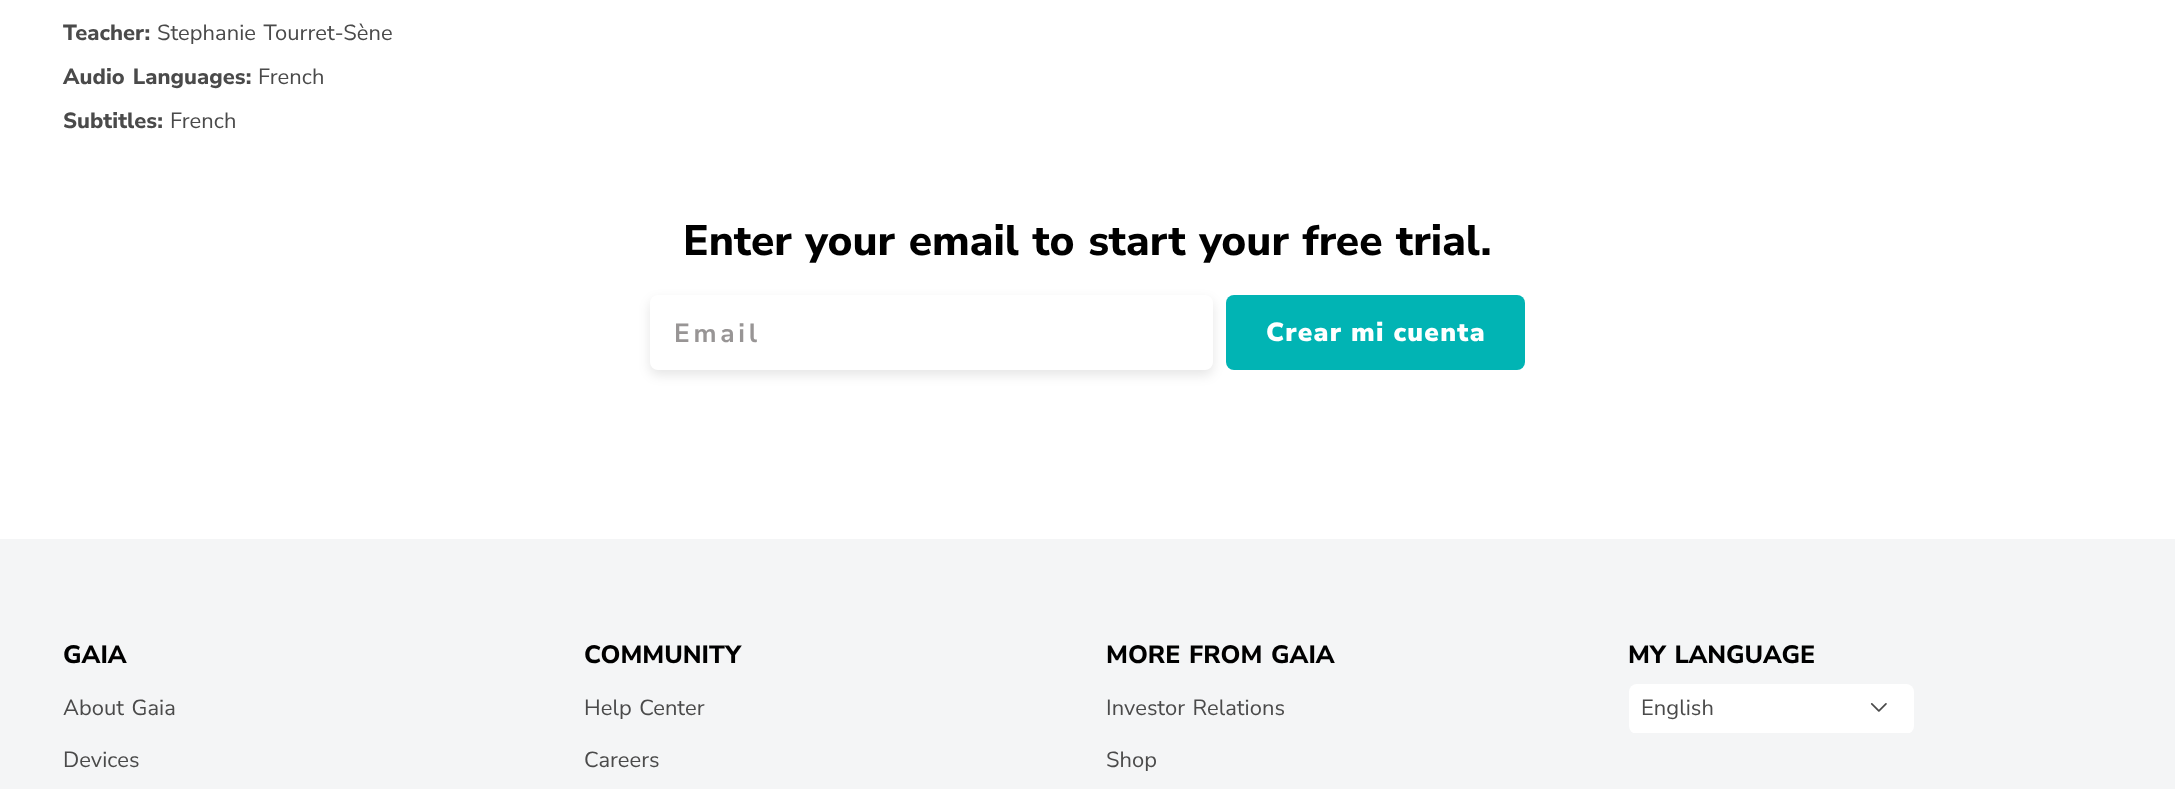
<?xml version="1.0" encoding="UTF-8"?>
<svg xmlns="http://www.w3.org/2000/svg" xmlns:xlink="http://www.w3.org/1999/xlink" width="2175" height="789">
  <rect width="100%" height="100%" fill="#ffffff" />
  <rect x="650" y="300" width="563" height="75" rx="8" fill="#000000" fill-opacity="0.1" filter="blur(6px)" />
  <rect x="650" y="295" width="563" height="75" rx="8" fill="#ffffff" />
  <rect x="1226" y="295" width="299" height="75" rx="8" fill="#01b4b4" />
  <rect y="539" width="2175" height="250" fill="#f4f5f6" />
  <rect x="1629" y="684" width="285" height="50" rx="8" fill="#ffffff" />
  <rect x="1633" y="733" width="277" height="1" fill="#f4f5f6" />
  <image x="1870" y="703" width="17" height="9" xlink:href="image1.png" />
  <text x="63" y="40" style="font-family: Nunito Sans; font-size: 21.9px; font-weight: 800; letter-spacing: 0.05px; fill: #4a4a4a">Teacher:</text>
  <text x="157" y="40" word-spacing="1.75" style="font-family: Nunito Sans; font-size: 21.9px; letter-spacing: 0.05px; fill: #4a4a4a">Stephanie Tourret-Sène</text>
  <text x="63" y="84" word-spacing="1.75" style="font-family: Nunito Sans; font-size: 21.9px; font-weight: 800; letter-spacing: 0.05px; fill: #4a4a4a">Audio Languages:</text>
  <text x="258" y="84" style="font-family: Nunito Sans; font-size: 21.9px; letter-spacing: 0.05px; fill: #4a4a4a">French</text>
  <text x="63" y="128" style="font-family: Nunito Sans; font-size: 21.9px; font-weight: 800; letter-spacing: 0.05px; fill: #4a4a4a">Subtitles:</text>
  <text x="170" y="128" style="font-family: Nunito Sans; font-size: 21.9px; letter-spacing: 0.05px; fill: #4a4a4a">French</text>
  <text x="683" y="255" word-spacing="1.75" style="font-family: Nunito Sans; font-size: 42.5px; font-weight: 800; fill: #000000">Enter your email to start your free trial.</text>
  <text x="674" y="342" style="font-family: Nunito Sans; font-size: 26.25px; font-weight: bold; letter-spacing: 3.75px; fill: #989595">Email</text>
  <text x="1266" y="341" style="font-family: Nunito Sans; font-size: 26.25px; font-weight: 900; letter-spacing: 1.25px; fill: #ffffff">Crear mi cuenta</text>
  <text x="63" y="663" style="font-family: Nunito Sans; font-size: 25px; font-weight: 800; fill: #000000">GAIA</text>
  <text x="63" y="715" word-spacing="1.75" style="font-family: Nunito Sans; font-size: 21.9px; letter-spacing: 0.05px; fill: #4a4a4a">About Gaia</text>
  <text x="63" y="767" style="font-family: Nunito Sans; font-size: 21.9px; letter-spacing: 0.05px; fill: #4a4a4a">Devices</text>
  <text x="584" y="663" style="font-family: Nunito Sans; font-size: 25px; font-weight: 800; fill: #000000">COMMUNITY</text>
  <text x="584" y="715" word-spacing="1.75" style="font-family: Nunito Sans; font-size: 21.9px; letter-spacing: 0.05px; fill: #4a4a4a">Help Center</text>
  <text x="584" y="767" style="font-family: Nunito Sans; font-size: 21.9px; letter-spacing: 0.05px; fill: #4a4a4a">Careers</text>
  <text x="1106" y="663" word-spacing="1.75" style="font-family: Nunito Sans; font-size: 25px; font-weight: 800; fill: #000000">MORE FROM GAIA</text>
  <text x="1106" y="715" word-spacing="1.75" style="font-family: Nunito Sans; font-size: 21.9px; letter-spacing: 0.05px; fill: #4a4a4a">Investor Relations</text>
  <text x="1106" y="767" style="font-family: Nunito Sans; font-size: 21.9px; letter-spacing: 0.05px; fill: #4a4a4a">Shop</text>
  <text x="1628" y="663" word-spacing="1.75" style="font-family: Nunito Sans; font-size: 25px; font-weight: 800; fill: #000000">MY LANGUAGE</text>
  <text x="1641" y="715" style="font-family: Nunito Sans; font-size: 21.9px; letter-spacing: 0.05px; fill: #4a4a4a">English</text>
</svg>
